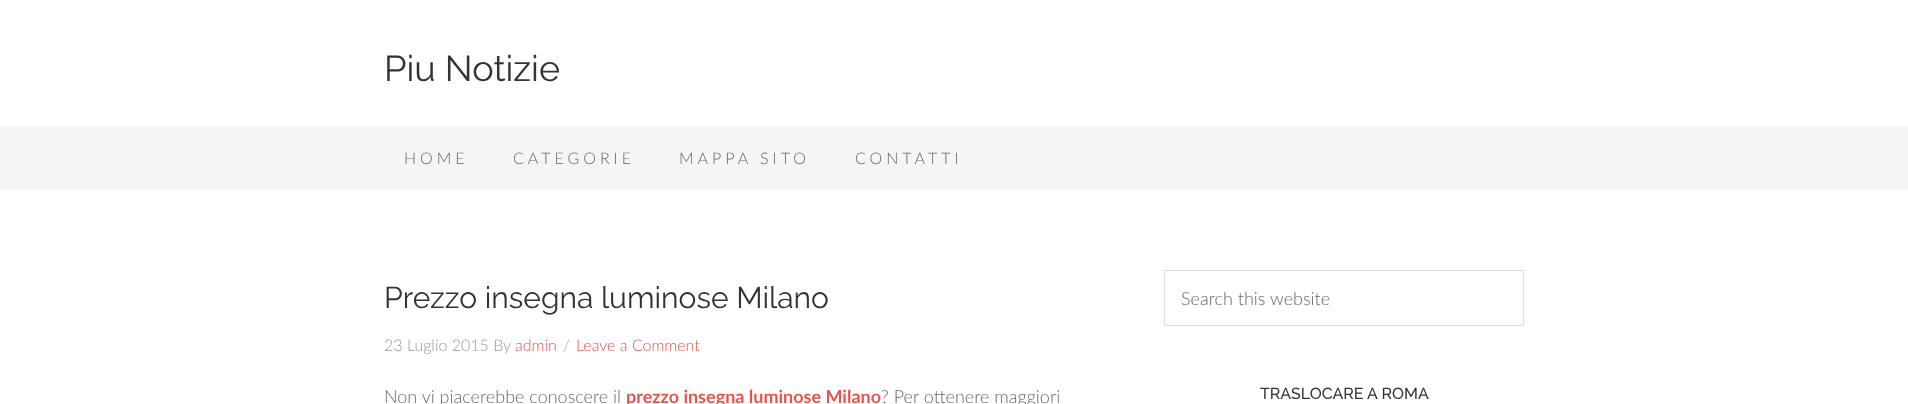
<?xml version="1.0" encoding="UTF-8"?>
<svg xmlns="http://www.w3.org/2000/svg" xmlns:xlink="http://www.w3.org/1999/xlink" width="1908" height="404">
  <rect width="100%" height="100%" fill="#ffffff" />
  <rect y="126" width="1908" height="64" fill="#f5f5f5" />
  <rect x="1164.5" y="270.5" width="359" height="55" fill="none" stroke="#dddddd" />
  <text x="384" y="81" style="font-family: Raleway; font-size: 36px; fill: #333333">Piu Notizie</text>
  <text x="404" y="164" style="font-family: Lato; font-size: 16px; font-weight: 300; letter-spacing: 4px; fill: #666666">HOME</text>
  <text x="513" y="164" style="font-family: Lato; font-size: 16px; font-weight: 300; letter-spacing: 4px; fill: #666666">CATEGORIE</text>
  <text x="679" y="164" style="font-family: Lato; font-size: 16px; font-weight: 300; letter-spacing: 4px; fill: #666666">MAPPA SITO</text>
  <text x="855" y="164" style="font-family: Lato; font-size: 16px; font-weight: 300; letter-spacing: 4px; fill: #666666">CONTATTI</text>
  <text x="384" y="308" style="font-family: Raleway; font-size: 30px; fill: #333333">Prezzo insegna luminose Milano</text>
  <text x="384" y="351" style="font-family: Lato; font-size: 16px; font-weight: 300; fill: #999999">23 Luglio 2015 By</text>
  <text x="515" y="351" style="font-family: Lato; font-size: 16px; font-weight: 300; fill: #e5554e">admin</text>
  <text x="563" y="351" style="font-family: Lato; font-size: 16px; font-weight: 300; fill: #999999">/</text>
  <text x="576" y="351" style="font-family: Lato; font-size: 16px; font-weight: 300; fill: #e5554e">Leave a Comment</text>
  <text x="384" y="403" style="font-family: Lato; font-size: 18px; font-weight: 300; fill: #666666">Non vi piacerebbe conoscere il</text>
  <text x="626" y="403" style="font-family: Lato; font-size: 18px; font-weight: bold; fill: #e5554e">prezzo insegna luminose Milano</text>
  <text x="881" y="403" style="font-family: Lato; font-size: 18px; font-weight: 300; fill: #666666">? Per ottenere maggiori</text>
  <text x="1181" y="305" style="font-family: Lato; font-size: 18px; font-weight: 300; fill: #666666">Search this website</text>
  <text x="1260" y="399" style="font-family: Raleway; font-size: 16px; font-weight: 500; fill: #333333">TRASLOCARE A ROMA</text>
</svg>
